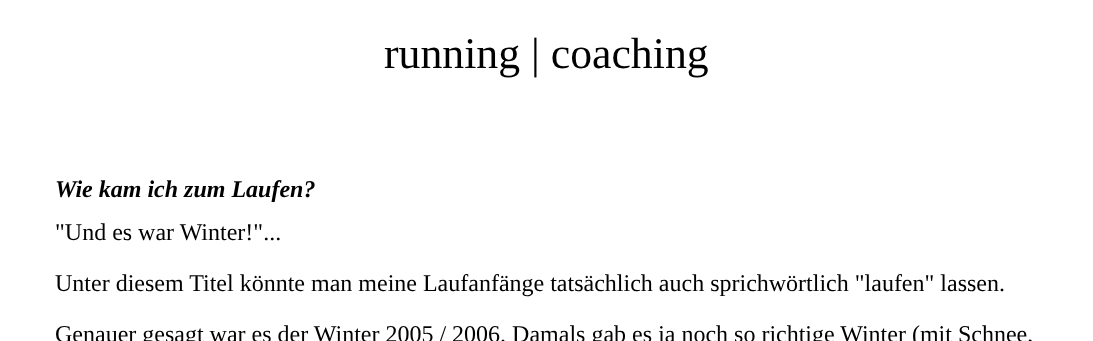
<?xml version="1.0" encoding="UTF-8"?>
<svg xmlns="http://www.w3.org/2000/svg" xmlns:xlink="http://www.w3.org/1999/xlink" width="1093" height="341">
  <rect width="100%" height="100%" fill="#ffffff" />
  <text x="384" y="68" style="font-family: Liberation Serif; font-size: 43.75px; fill: #000000">running | coaching</text>
  <text x="55" y="197" style="font-family: Liberation Serif; font-size: 24px; font-weight: bold; font-style: italic; fill: #000000">Wie kam ich zum Laufen?</text>
  <text x="55" y="240" style="font-family: Liberation Serif; font-size: 24px; fill: #000000">"Und es war Winter!"...</text>
  <text x="55" y="291" style="font-family: Liberation Serif; font-size: 24px; fill: #000000">Unter diesem Titel könnte man meine Laufanfänge tatsächlich auch sprichwörtlich "laufen" lassen.</text>
  <text x="55" y="342" style="font-family: Liberation Serif; font-size: 24px; fill: #000000">Genauer gesagt war es der Winter 2005 / 2006. Damals gab es ja noch so richtige Winter (mit Schnee,</text>
</svg>
